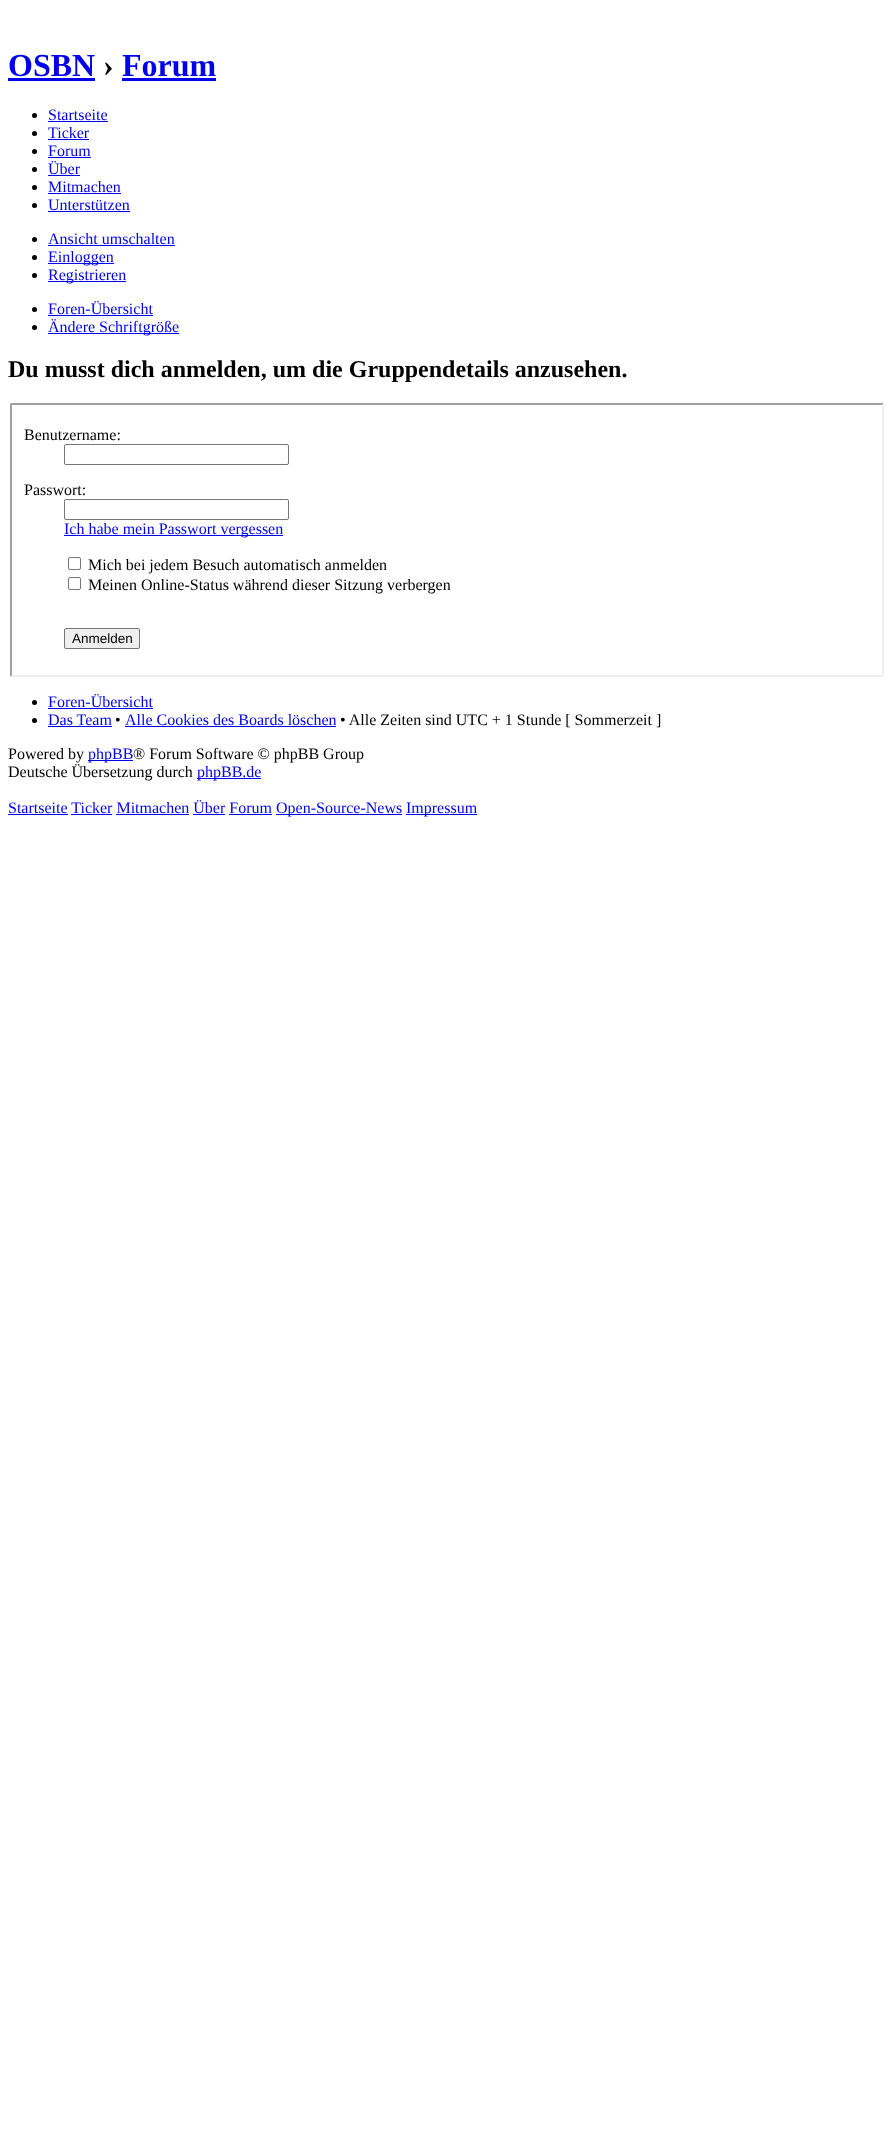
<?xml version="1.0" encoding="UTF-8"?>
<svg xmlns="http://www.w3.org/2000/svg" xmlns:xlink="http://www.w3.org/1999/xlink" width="894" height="2130">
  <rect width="100%" height="100%" fill="#ffffff" />
  <rect x="8" y="78" width="87" height="3" fill="#0000ee" />
  <rect x="122" y="78" width="94" height="3" fill="#0000ee" />
  <circle cx="34.5" cy="115.5" r="2.5" fill="#000000" />
  <rect x="48" y="121" width="60" height="1" fill="#0000ee" />
  <circle cx="34.5" cy="133.5" r="2.5" fill="#000000" />
  <rect x="48" y="139" width="41" height="1" fill="#0000ee" />
  <circle cx="34.5" cy="151.5" r="2.5" fill="#000000" />
  <rect x="48" y="157" width="43" height="1" fill="#0000ee" />
  <circle cx="34.5" cy="169.5" r="2.5" fill="#000000" />
  <rect x="48" y="175" width="32" height="1" fill="#0000ee" />
  <circle cx="34.5" cy="187.5" r="2.5" fill="#000000" />
  <rect x="48" y="193" width="73" height="1" fill="#0000ee" />
  <circle cx="34.5" cy="205.5" r="2.5" fill="#000000" />
  <rect x="48" y="211" width="82" height="1" fill="#0000ee" />
  <circle cx="34.5" cy="239.5" r="2.5" fill="#000000" />
  <rect x="48" y="245" width="127" height="1" fill="#0000ee" />
  <circle cx="34.5" cy="257.5" r="2.5" fill="#000000" />
  <rect x="48" y="263" width="66" height="1" fill="#0000ee" />
  <circle cx="34.5" cy="275.5" r="2.5" fill="#000000" />
  <rect x="48" y="281" width="78" height="1" fill="#0000ee" />
  <circle cx="34.5" cy="309.5" r="2.5" fill="#000000" />
  <rect x="48" y="315" width="105" height="1" fill="#0000ee" />
  <circle cx="34.5" cy="327.5" r="2.5" fill="#000000" />
  <rect x="48" y="333" width="131" height="1" fill="#0000ee" />
  <path d="M 10 403 h 874 l -2 2 h -870 z" fill="#9f9f9f" />
  <path d="M 884 403 v 274 l -2 -2 v -270 z" fill="#efefef" />
  <path d="M 884 677 h -874 l 2 -2 h 870 z" fill="#efefef" />
  <path d="M 10 677 v -274 l 2 2 v 270 z" fill="#9f9f9f" />
  <rect x="64.5" y="444.5" width="224" height="20" rx="1.5" fill="none" stroke="#767676" />
  <rect x="64.5" y="499.5" width="224" height="20" rx="1.5" fill="none" stroke="#767676" />
  <rect x="64" y="535" width="219" height="1" fill="#0000ee" />
  <rect x="68.5" y="557.5" width="12" height="12" rx="1.5" fill="none" stroke="#767676" />
  <rect x="68.5" y="577.5" width="12" height="12" rx="1.5" fill="none" stroke="#767676" />
  <rect x="64.5" y="628.5" width="75" height="20" rx="1.5" fill="#efefef" stroke="#767676" />
  <circle cx="34.5" cy="702.5" r="2.5" fill="#000000" />
  <rect x="48" y="708" width="105" height="1" fill="#0000ee" />
  <circle cx="34.5" cy="720.5" r="2.5" fill="#000000" />
  <rect x="48" y="726" width="64" height="1" fill="#0000ee" />
  <rect x="125" y="726" width="211" height="1" fill="#0000ee" />
  <rect x="88" y="760" width="45" height="1" fill="#0000ee" />
  <rect x="197" y="778" width="64" height="1" fill="#0000ee" />
  <rect x="8" y="814" width="60" height="1" fill="#0000ee" />
  <rect x="276" y="814" width="126" height="1" fill="#0000ee" />
  <rect x="406" y="814" width="71" height="1" fill="#0000ee" />
  <rect x="71" y="814" width="41" height="1" fill="#0000ee" />
  <rect x="116" y="814" width="73" height="1" fill="#0000ee" />
  <rect x="193" y="814" width="32" height="1" fill="#0000ee" />
  <rect x="229" y="814" width="43" height="1" fill="#0000ee" />
  <text x="8" y="76" style="font-family: Liberation Serif; font-size: 32px; font-weight: bold; fill: #0000ee">OSBN</text>
  <text x="103" y="76" style="font-family: Liberation Serif; font-size: 32px; font-weight: bold; fill: #000000">›</text>
  <text x="122" y="76" style="font-family: Liberation Serif; font-size: 32px; font-weight: bold; fill: #0000ee">Forum</text>
  <text x="48" y="120" style="font-family: Liberation Serif; font-size: 16px; fill: #0000ee">Startseite</text>
  <text x="48" y="138" style="font-family: Liberation Serif; font-size: 16px; fill: #0000ee">Ticker</text>
  <text x="48" y="156" style="font-family: Liberation Serif; font-size: 16px; fill: #0000ee">Forum</text>
  <text x="48" y="174" style="font-family: Liberation Serif; font-size: 16px; fill: #0000ee">Über</text>
  <text x="48" y="192" style="font-family: Liberation Serif; font-size: 16px; fill: #0000ee">Mitmachen</text>
  <text x="48" y="210" style="font-family: Liberation Serif; font-size: 16px; fill: #0000ee">Unterstützen</text>
  <text x="48" y="244" style="font-family: Liberation Serif; font-size: 16px; fill: #0000ee">Ansicht umschalten</text>
  <text x="48" y="262" style="font-family: Liberation Serif; font-size: 16px; fill: #0000ee">Einloggen</text>
  <text x="48" y="280" style="font-family: Liberation Serif; font-size: 16px; fill: #0000ee">Registrieren</text>
  <text x="48" y="314" style="font-family: Liberation Serif; font-size: 16px; fill: #0000ee">Foren-Übersicht</text>
  <text x="48" y="332" style="font-family: Liberation Serif; font-size: 16px; fill: #0000ee">Ändere Schriftgröße</text>
  <text x="8" y="377" style="font-family: Liberation Serif; font-size: 24px; font-weight: bold; fill: #000000">Du musst dich anmelden, um die Gruppendetails anzusehen.</text>
  <text x="24" y="440" style="font-family: Liberation Serif; font-size: 16px; fill: #000000">Benutzername:</text>
  <text x="24" y="495" style="font-family: Liberation Serif; font-size: 16px; fill: #000000">Passwort:</text>
  <text x="64" y="534" style="font-family: Liberation Serif; font-size: 16px; fill: #0000ee">Ich habe mein Passwort vergessen</text>
  <text x="88" y="570" style="font-family: Liberation Serif; font-size: 16px; fill: #000000">Mich bei jedem Besuch automatisch anmelden</text>
  <text x="88" y="590" style="font-family: Liberation Serif; font-size: 16px; fill: #000000">Meinen Online-Status während dieser Sitzung verbergen</text>
  <text x="72" y="643" style="font-family: Liberation Sans; font-size: 13.5px; fill: #000000">Anmelden</text>
  <text x="48" y="707" style="font-family: Liberation Serif; font-size: 16px; fill: #0000ee">Foren-Übersicht</text>
  <text x="48" y="725" style="font-family: Liberation Serif; font-size: 16px; fill: #0000ee">Das Team</text>
  <text x="115" y="725" style="font-family: Liberation Serif; font-size: 16px; fill: #000000">•</text>
  <text x="125" y="725" style="font-family: Liberation Serif; font-size: 16px; fill: #0000ee">Alle Cookies des Boards löschen</text>
  <text x="340" y="725" style="font-family: Liberation Serif; font-size: 16px; fill: #000000">• Alle Zeiten sind UTC + 1 Stunde [ Sommerzeit ]</text>
  <text x="8" y="759" style="font-family: Liberation Serif; font-size: 16px; fill: #000000">Powered by</text>
  <text x="88" y="759" style="font-family: Liberation Serif; font-size: 16px; fill: #0000ee">phpBB</text>
  <text x="133" y="759" style="font-family: Liberation Serif; font-size: 16px; fill: #000000">® Forum Software © phpBB Group</text>
  <text x="8" y="777" style="font-family: Liberation Serif; font-size: 16px; fill: #000000">Deutsche Übersetzung durch</text>
  <text x="197" y="777" style="font-family: Liberation Serif; font-size: 16px; fill: #0000ee">phpBB.de</text>
  <text x="8" y="813" style="font-family: Liberation Serif; font-size: 16px; fill: #0000ee">Startseite Ticker Mitmachen Über Forum</text>
  <text x="276" y="813" style="font-family: Liberation Serif; font-size: 16px; fill: #0000ee">Open-Source-News</text>
  <text x="406" y="813" style="font-family: Liberation Serif; font-size: 16px; fill: #0000ee">Impressum</text>
</svg>
